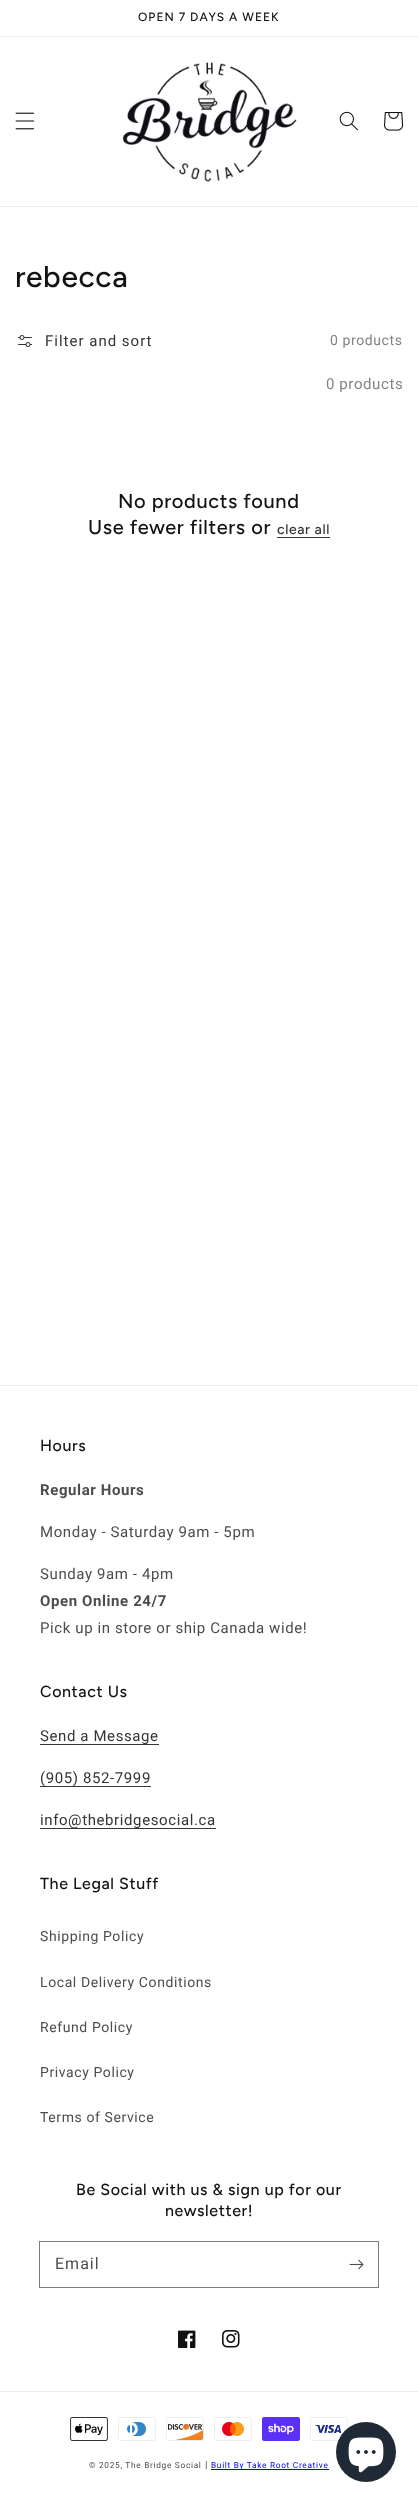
<?xml version="1.0" encoding="UTF-8"?>
<svg xmlns="http://www.w3.org/2000/svg" xmlns:xlink="http://www.w3.org/1999/xlink" width="418" height="2503">
  <rect width="100%" height="100%" fill="#ffffff" />
  <rect y="36" width="418" height="1" fill="#ececec" />
  <rect y="206" width="418" height="1" fill="#ececec" />
  <image x="15" y="112" width="20" height="18" xlink:href="image1.png" />
  <image x="122" y="62" width="175" height="120" xlink:href="image2.png" />
  <image x="339" y="111" width="19" height="20" xlink:href="image3.png" />
  <image x="384" y="112" width="20" height="19" xlink:href="image4.png" />
  <image x="18" y="335" width="14" height="12" xlink:href="image5.png" />
  <rect x="277" y="537" width="53" height="1" fill="#363636" />
  <rect y="1385" width="418" height="1" fill="#ececec" />
  <rect x="40" y="1744" width="119" height="1" fill="#363636" />
  <rect x="40" y="1786" width="111" height="1" fill="#363636" />
  <rect x="40" y="1828" width="176" height="1" fill="#363636" />
  <rect x="39.5" y="2241.5" width="339" height="46" fill="none" stroke="#7d7d7d" />
  <image x="349" y="2259" width="15" height="11" xlink:href="image6.png" />
  <image x="178" y="2330" width="18" height="18" xlink:href="image7.png" />
  <image x="222" y="2330" width="18" height="18" xlink:href="image8.png" />
  <rect y="2391" width="418" height="1" fill="#ececec" />
  <image x="70" y="2417" width="38" height="24" xlink:href="image9.png" />
  <image x="118" y="2417" width="38" height="24" xlink:href="image10.png" />
  <image x="166" y="2417" width="38" height="24" xlink:href="image11.png" />
  <image x="214" y="2417" width="38" height="24" xlink:href="image12.png" />
  <image x="262" y="2417" width="38" height="24" xlink:href="image13.png" />
  <image x="310" y="2417" width="38" height="24" xlink:href="image14.png" />
  <rect x="211" y="2469" width="118" height="1" fill="#0000ee" />
  <circle cx="366" cy="2452" r="30" fill="#202a36" />
  <image x="348" y="2437" width="36" height="36" xlink:href="image15.png" />
  <text x="138" y="21" style="font-family: Figtree; font-size: 12px; font-weight: 500; letter-spacing: 1px; fill: #121212">OPEN 7 DAYS A WEEK</text>
  <text x="15" y="287" style="font-family: Figtree; font-size: 30px; font-weight: 500; letter-spacing: 0.6px; fill: #121212">rebecca</text>
  <text x="45" y="346" style="font-family: Roboto; font-size: 15px; letter-spacing: 1px; fill: #353535">Filter and sort</text>
  <text x="330" y="345" style="font-family: Roboto; font-size: 14px; letter-spacing: 0.6px; fill: #838383">0 products</text>
  <text x="326" y="389" style="font-family: Roboto; font-size: 15px; letter-spacing: 0.6px; fill: #838383">0 products</text>
  <text x="118" y="508" style="font-family: Figtree; font-size: 20px; font-weight: 500; letter-spacing: 0.6px; fill: #121212">No products found</text>
  <text x="88" y="534" style="font-family: Figtree; font-size: 20px; font-weight: 500; letter-spacing: 0.6px; fill: #121212">Use fewer filters or</text>
  <text x="277" y="534" style="font-family: Figtree; font-size: 14px; font-weight: 500; letter-spacing: 0.6px; fill: #353535">clear all</text>
  <text x="40" y="1451" style="font-family: Figtree; font-size: 16px; font-weight: 500; letter-spacing: 0.6px; fill: #121212">Hours</text>
  <text x="40" y="1495" style="font-family: Roboto; font-size: 15px; font-weight: bold; letter-spacing: 0.6px; fill: #4d4d4d">Regular Hours</text>
  <text x="40" y="1537" style="font-family: Roboto; font-size: 15px; letter-spacing: 0.6px; fill: #4d4d4d">Monday - Saturday 9am - 5pm</text>
  <text x="40" y="1579" style="font-family: Roboto; font-size: 15px; letter-spacing: 0.6px; fill: #4d4d4d">Sunday 9am - 4pm</text>
  <text x="40" y="1606" style="font-family: Roboto; font-size: 15px; font-weight: bold; letter-spacing: 0.6px; fill: #4d4d4d">Open Online 24/7</text>
  <text x="40" y="1633" style="font-family: Roboto; font-size: 15px; letter-spacing: 0.6px; fill: #4d4d4d">Pick up in store or ship Canada wide!</text>
  <text x="40" y="1697" style="font-family: Figtree; font-size: 16px; font-weight: 500; letter-spacing: 0.6px; fill: #121212">Contact Us</text>
  <text x="40" y="1741" style="font-family: Roboto; font-size: 15px; letter-spacing: 0.6px; fill: #353535">Send a Message</text>
  <text x="40" y="1783" style="font-family: Roboto; font-size: 15px; letter-spacing: 0.6px; fill: #353535">(905) 852-7999</text>
  <text x="40" y="1825" style="font-family: Roboto; font-size: 15px; letter-spacing: 0.6px; fill: #353535">info@thebridgesocial.ca</text>
  <text x="40" y="1889" style="font-family: Figtree; font-size: 16px; font-weight: 500; letter-spacing: 0.6px; fill: #121212">The Legal Stuff</text>
  <text x="40" y="1941" style="font-family: Roboto; font-size: 14px; letter-spacing: 0.6px; fill: #4d4d4d">Shipping Policy</text>
  <text x="40" y="1987" style="font-family: Roboto; font-size: 14px; letter-spacing: 0.6px; fill: #4d4d4d">Local Delivery Conditions</text>
  <text x="40" y="2032" style="font-family: Roboto; font-size: 14px; letter-spacing: 0.6px; fill: #4d4d4d">Refund Policy</text>
  <text x="40" y="2077" style="font-family: Roboto; font-size: 14px; letter-spacing: 0.6px; fill: #4d4d4d">Privacy Policy</text>
  <text x="40" y="2122" style="font-family: Roboto; font-size: 14px; letter-spacing: 0.6px; fill: #4d4d4d">Terms of Service</text>
  <text x="76" y="2195" style="font-family: Figtree; font-size: 16px; font-weight: 500; letter-spacing: 0.6px; fill: #121212">Be Social with us &amp; sign up for our</text>
  <text x="165" y="2216" style="font-family: Figtree; font-size: 16px; font-weight: 500; letter-spacing: 0.6px; fill: #121212">newsletter!</text>
  <text x="55" y="2269" style="font-family: Roboto; font-size: 16px; letter-spacing: 1px; fill: #4d4d4d">Email</text>
  <text x="89" y="2468" style="font-family: Roboto; font-size: 8.3px; letter-spacing: 0.7px; fill: #4d4d4d">© 2025, The Bridge Social</text>
  <text x="205" y="2468" style="font-family: Roboto; font-size: 10px; letter-spacing: 0.7px; fill: #4d4d4d">|</text>
  <text x="211" y="2468" style="font-family: Roboto; font-size: 8.3px; letter-spacing: 0.7px; fill: #0000ee">Built By Take Root Creative</text>
</svg>
